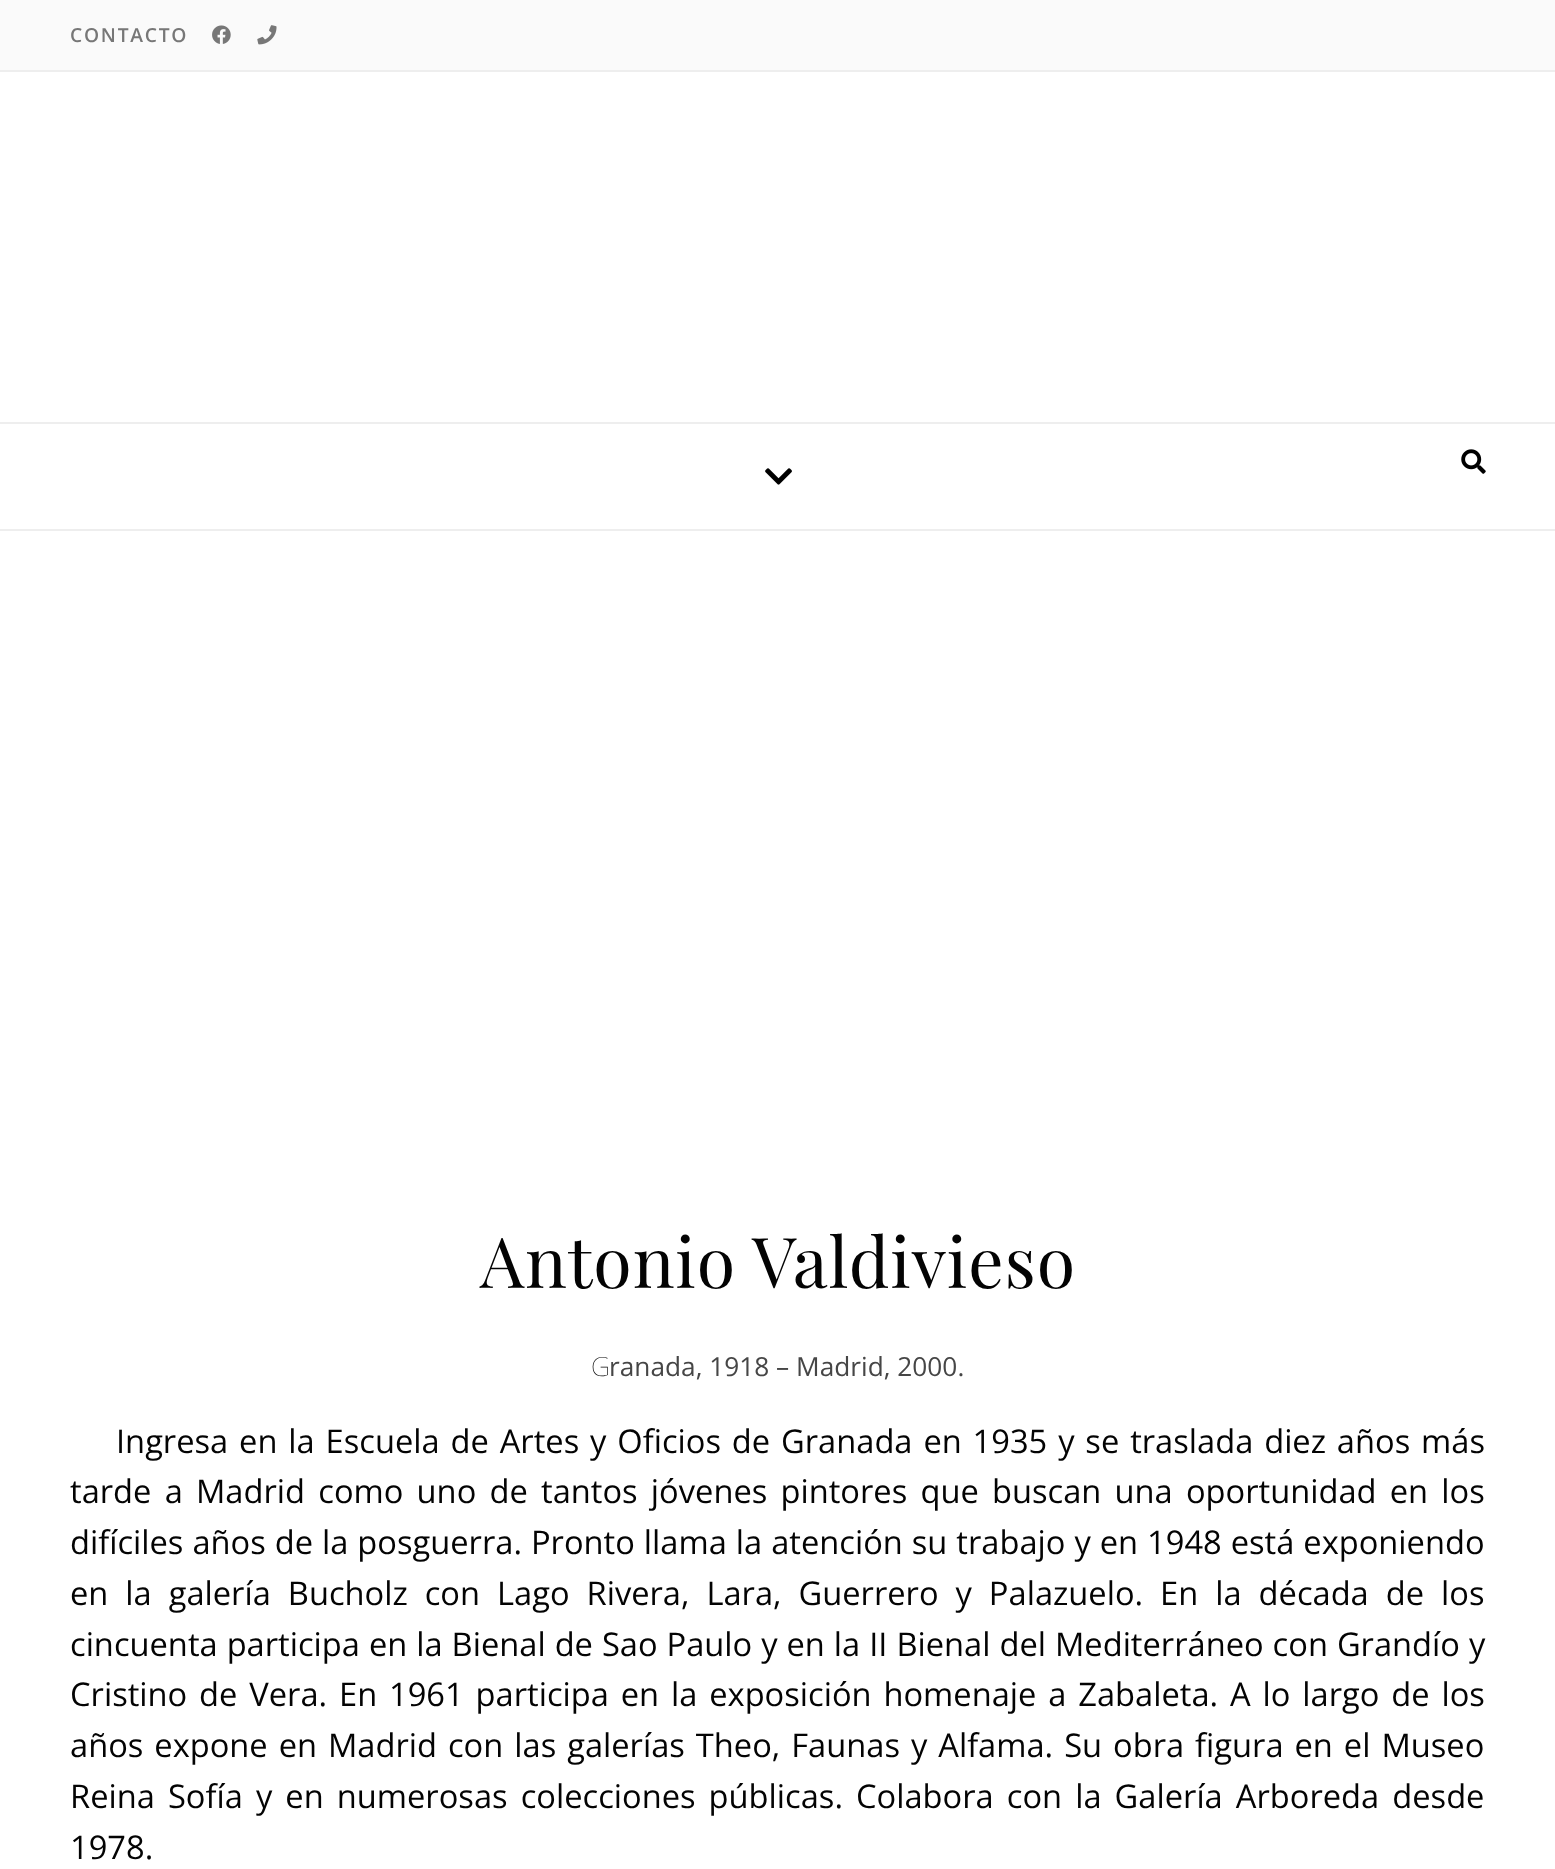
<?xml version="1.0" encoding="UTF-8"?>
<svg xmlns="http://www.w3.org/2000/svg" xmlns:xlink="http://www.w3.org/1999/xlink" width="1555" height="1869">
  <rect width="100%" height="100%" fill="#fafafa" />
  <rect y="70" width="1555" height="2" fill="#eeeeee" />
  <image x="212" y="25" width="19" height="19" xlink:href="image1.png" />
  <image x="257" y="25" width="20" height="20" xlink:href="image2.png" />
  <rect y="72" width="1555" height="350" fill="#ffffff" />
  <rect y="424" width="1555" height="105" fill="#ffffff" />
  <rect y="422" width="1555" height="2" fill="#eeeeee" />
  <rect y="529" width="1555" height="2" fill="#eeeeee" />
  <image x="1461" y="449" width="25" height="25" xlink:href="image3.png" />
  <image x="765" y="468" width="27" height="17" xlink:href="image4.png" />
  <rect y="531" width="1555" height="1338" fill="#ffffff" />
  <text x="70" y="42" style="font-family: Open Sans; font-size: 19.25px; font-weight: 600; letter-spacing: 1.75px; fill: #777777">CONTACTO</text>
  <text x="480" y="1288" style="font-family: Playfair Display; font-size: 70px; letter-spacing: 0.9px; fill: #030303">Antonio Valdivieso</text>
  <text x="591" y="1376" style="font-family: Noto Sans; font-size: 26.25px; font-weight: 100; fill: #030303">G</text>
  <text x="609" y="1376" style="font-family: Open Sans; font-size: 26.25px; fill: #464646">ranada, 1918 – Madrid, 2000.</text>
  <text x="116" y="1453" word-spacing="2.4" style="font-family: Open Sans; font-size: 32.65px; fill: #030303">Ingresa en la Escuela de Artes y Oficios de Granada en 1935 y se traslada diez años más</text>
  <text x="70" y="1503" word-spacing="4.75" style="font-family: Open Sans; font-size: 32.65px; fill: #030303">tarde a Madrid como uno de tantos jóvenes pintores que buscan una oportunidad en los</text>
  <text x="70" y="1554" word-spacing="0.5" style="font-family: Open Sans; font-size: 32.65px; fill: #030303">difíciles años de la posguerra. Pronto llama la atención su trabajo y en 1948 está exponiendo</text>
  <text x="70" y="1605" word-spacing="8.5" style="font-family: Open Sans; font-size: 32.65px; fill: #030303">en la galería Bucholz con Lago Rivera, Lara, Guerrero y Palazuelo. En la década de los</text>
  <text x="70" y="1656" word-spacing="0.5" style="font-family: Open Sans; font-size: 32.65px; fill: #030303">cincuenta participa en la Bienal de Sao Paulo y en la II Bienal del Mediterráneo con Grandío y</text>
  <text x="70" y="1706" word-spacing="3.4" style="font-family: Open Sans; font-size: 32.65px; fill: #030303">Cristino de Vera. En 1961 participa en la exposición homenaje a Zabaleta. A lo largo de los</text>
  <text x="70" y="1757" word-spacing="2.5" style="font-family: Open Sans; font-size: 32.65px; fill: #030303">años expone en Madrid con las galerías Theo, Faunas y Alfama. Su obra figura en el Museo</text>
  <text x="70" y="1808" word-spacing="4.6" style="font-family: Open Sans; font-size: 32.65px; fill: #030303">Reina Sofía y en numerosas colecciones públicas. Colabora con la Galería Arboreda desde</text>
  <text x="70" y="1859" style="font-family: Open Sans; font-size: 32.65px; fill: #030303">1978.</text>
</svg>
